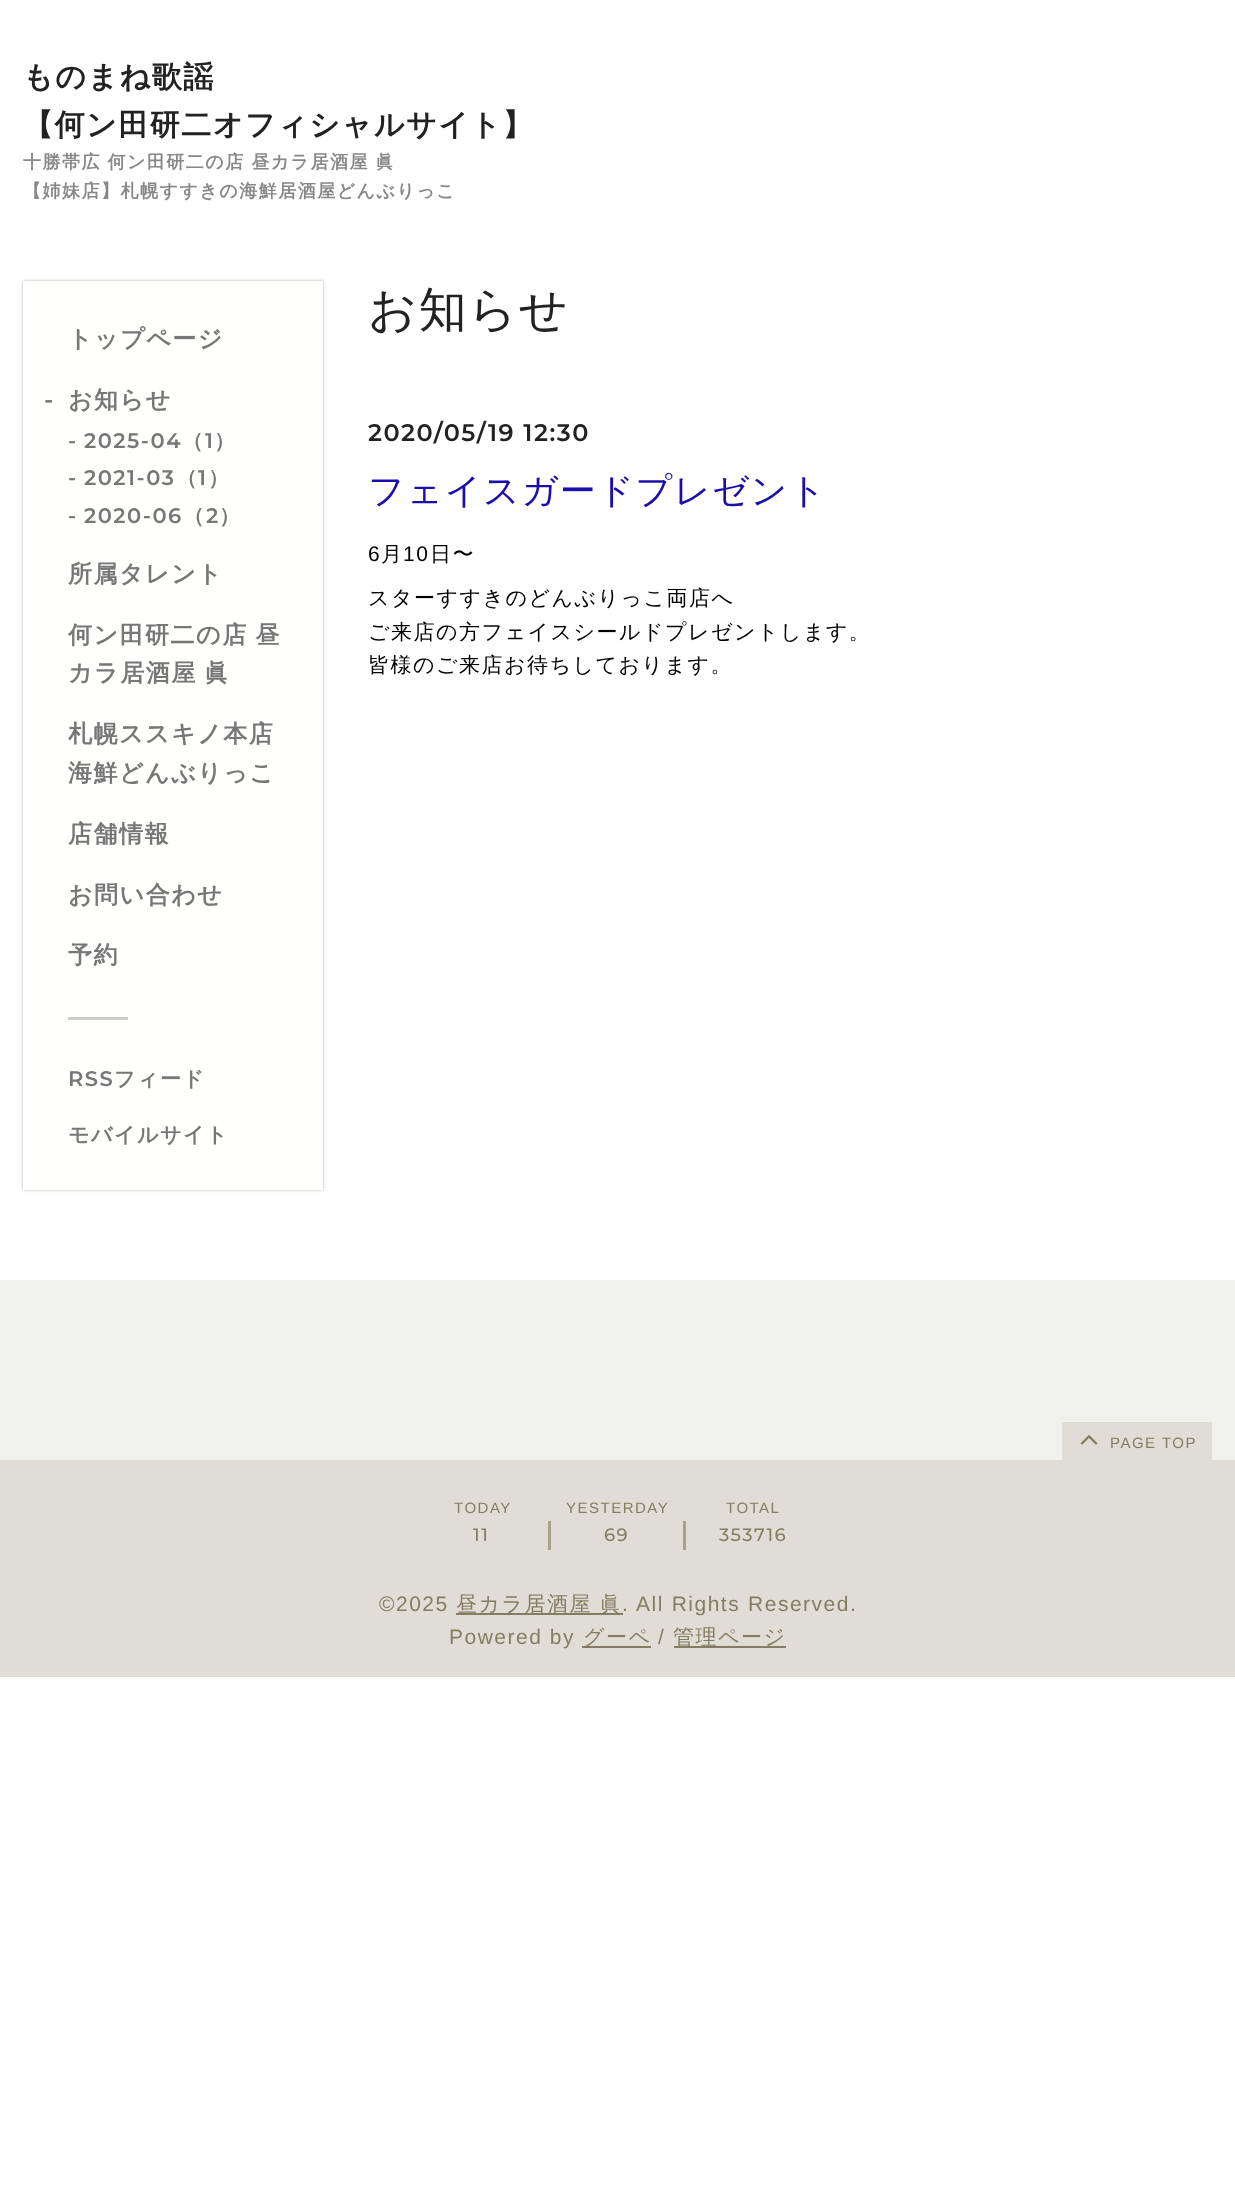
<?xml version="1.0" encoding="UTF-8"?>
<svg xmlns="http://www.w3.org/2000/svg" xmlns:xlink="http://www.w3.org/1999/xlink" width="1235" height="2202">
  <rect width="100%" height="100%" fill="#ffffff" />
  <rect x="23" y="281" width="300" height="909" fill="#000000" fill-opacity="0.3" filter="blur(1.5px)" />
  <rect x="23" y="281" width="300" height="909" fill="#fffffe" />
  <rect x="68" y="1017" width="60" height="3" fill="#cccccb" />
  <rect y="1280" width="1235" height="180" fill="#f1f1ee" />
  <rect y="1460" width="1235" height="217" fill="#dfddd5" />
  <rect x="1062" y="1422" width="150" height="38" fill="#dfddd5" />
  <image x="1080" y="1435" width="18" height="10" xlink:href="image1.png" />
  <rect x="548" y="1521" width="3" height="29" fill="#a8a28d" />
  <rect x="683" y="1521" width="3" height="29" fill="#a8a28d" />
  <rect x="456" y="1613" width="167" height="2" fill="#847d64" />
  <rect x="582" y="1646" width="69" height="2" fill="#847d64" />
  <rect x="674" y="1646" width="112" height="2" fill="#847d64" />
  <text x="23" y="87" style="font-family: WenQuanYi Zen Hei; font-size: 30px; font-weight: bold; letter-spacing: 1.5px; fill: #222222">ものまね歌謡</text>
  <text x="23" y="135" style="font-family: WenQuanYi Zen Hei; font-size: 30px; font-weight: bold; letter-spacing: 1.5px; fill: #222222">【何ン田研二オフィシャルサイト】</text>
  <text x="23" y="168" word-spacing="-0.5" style="font-family: WenQuanYi Zen Hei; font-size: 18px; font-weight: bold; letter-spacing: 1.5px; fill: #888888">十勝帯広 何ン田研二の店 昼カラ居酒屋 眞</text>
  <text x="23" y="197" style="font-family: WenQuanYi Zen Hei; font-size: 18px; font-weight: bold; letter-spacing: 1.5px; fill: #888888">【姉妹店】札幌すすきの海鮮居酒屋どんぶりっこ</text>
  <text x="68" y="347" style="font-family: WenQuanYi Zen Hei; font-size: 24px; font-weight: bold; letter-spacing: 1.5px; fill: #777777">トップページ</text>
  <text x="44" y="408" style="font-family: Montserrat; font-size: 24px; font-weight: 600; letter-spacing: 1.5px; fill: #777777">-</text>
  <text x="68" y="408" style="font-family: WenQuanYi Zen Hei; font-size: 24px; font-weight: bold; letter-spacing: 1.5px; fill: #777777">お知らせ</text>
  <text x="68" y="448" style="font-family: Montserrat; font-size: 21px; font-weight: 600; letter-spacing: 1.5px; fill: #777777">-</text>
  <text x="84" y="448" style="font-family: Montserrat; font-size: 21px; font-weight: 600; letter-spacing: 1.5px; fill: #777777">2025-04</text>
  <text x="182" y="448" style="font-family: WenQuanYi Zen Hei; font-size: 21px; font-weight: bold; letter-spacing: 1.5px; fill: #777777">（</text>
  <text x="205" y="448" style="font-family: Montserrat; font-size: 21px; font-weight: 600; letter-spacing: 1.5px; fill: #777777">1</text>
  <text x="214" y="448" style="font-family: WenQuanYi Zen Hei; font-size: 21px; font-weight: bold; letter-spacing: 1.5px; fill: #777777">）</text>
  <text x="68" y="485" style="font-family: Montserrat; font-size: 21px; font-weight: 600; letter-spacing: 1.5px; fill: #777777">-</text>
  <text x="84" y="485" style="font-family: Montserrat; font-size: 21px; font-weight: 600; letter-spacing: 1.5px; fill: #777777">2021-03</text>
  <text x="176" y="485" style="font-family: WenQuanYi Zen Hei; font-size: 21px; font-weight: bold; letter-spacing: 1.5px; fill: #777777">（</text>
  <text x="198" y="485" style="font-family: Montserrat; font-size: 21px; font-weight: 600; letter-spacing: 1.5px; fill: #777777">1</text>
  <text x="208" y="485" style="font-family: WenQuanYi Zen Hei; font-size: 21px; font-weight: bold; letter-spacing: 1.5px; fill: #777777">）</text>
  <text x="68" y="523" style="font-family: Montserrat; font-size: 21px; font-weight: 600; letter-spacing: 1.5px; fill: #777777">-</text>
  <text x="84" y="523" style="font-family: Montserrat; font-size: 21px; font-weight: 600; letter-spacing: 1.5px; fill: #777777">2020-06</text>
  <text x="183" y="523" style="font-family: WenQuanYi Zen Hei; font-size: 21px; font-weight: bold; letter-spacing: 1.5px; fill: #777777">（</text>
  <text x="206" y="523" style="font-family: Montserrat; font-size: 21px; font-weight: 600; letter-spacing: 1.5px; fill: #777777">2</text>
  <text x="219" y="523" style="font-family: WenQuanYi Zen Hei; font-size: 21px; font-weight: bold; letter-spacing: 1.5px; fill: #777777">）</text>
  <text x="68" y="582" style="font-family: WenQuanYi Zen Hei; font-size: 24px; font-weight: bold; letter-spacing: 1.5px; fill: #777777">所属タレント</text>
  <text x="68" y="643" word-spacing="-1" style="font-family: WenQuanYi Zen Hei; font-size: 24px; font-weight: bold; letter-spacing: 1.5px; fill: #777777">何ン田研二の店 昼</text>
  <text x="68" y="681" word-spacing="-1" style="font-family: WenQuanYi Zen Hei; font-size: 24px; font-weight: bold; letter-spacing: 1.5px; fill: #777777">カラ居酒屋 眞</text>
  <text x="68" y="742" style="font-family: WenQuanYi Zen Hei; font-size: 24px; font-weight: bold; letter-spacing: 1.5px; fill: #777777">札幌ススキノ本店</text>
  <text x="68" y="781" style="font-family: WenQuanYi Zen Hei; font-size: 24px; font-weight: bold; letter-spacing: 1.5px; fill: #777777">海鮮どんぶりっこ</text>
  <text x="68" y="842" style="font-family: WenQuanYi Zen Hei; font-size: 24px; font-weight: bold; letter-spacing: 1.5px; fill: #777777">店舗情報</text>
  <text x="68" y="903" style="font-family: WenQuanYi Zen Hei; font-size: 24px; font-weight: bold; letter-spacing: 1.5px; fill: #777777">お問い合わせ</text>
  <text x="68" y="963" style="font-family: WenQuanYi Zen Hei; font-size: 24px; font-weight: bold; letter-spacing: 1.5px; fill: #777777">予約</text>
  <text x="68" y="1086" style="font-family: Montserrat; font-size: 21px; font-weight: 600; letter-spacing: 1.5px; fill: #777777">RSS</text>
  <text x="114" y="1086" style="font-family: WenQuanYi Zen Hei; font-size: 21px; font-weight: bold; letter-spacing: 1.5px; fill: #777777">フィード</text>
  <text x="68" y="1142" style="font-family: WenQuanYi Zen Hei; font-size: 21px; font-weight: bold; letter-spacing: 1.5px; fill: #777777">モバイルサイト</text>
  <text x="368" y="326" style="font-family: WenQuanYi Zen Hei; font-size: 48px; font-weight: 500; letter-spacing: 1.5px; fill: #222222">お知らせ</text>
  <text x="368" y="441" style="font-family: Montserrat; font-size: 24px; font-weight: 600; letter-spacing: 1.5px; fill: #222222">2020/05/19 12:30</text>
  <text x="368" y="503" style="font-family: WenQuanYi Zen Hei; font-size: 36px; font-weight: 500; letter-spacing: 1.5px; fill: #1a0dab">フェイスガードプレゼント</text>
  <text x="368" y="561" style="font-family: Liberation Sans; font-size: 21px; letter-spacing: 1.5px; fill: #000000">6</text>
  <text x="381" y="561" style="font-family: WenQuanYi Zen Hei; font-size: 21px; font-weight: 500; letter-spacing: 1.5px; fill: #000000">月</text>
  <text x="403" y="561" style="font-family: Liberation Sans; font-size: 21px; letter-spacing: 1.5px; fill: #000000">10</text>
  <text x="430" y="561" style="font-family: WenQuanYi Zen Hei; font-size: 21px; font-weight: 500; letter-spacing: 1.5px; fill: #000000">日〜</text>
  <text x="368" y="605" style="font-family: WenQuanYi Zen Hei; font-size: 21px; font-weight: 500; letter-spacing: 1.5px; fill: #000000">スターすすきのどんぶりっこ両店へ</text>
  <text x="368" y="639" style="font-family: WenQuanYi Zen Hei; font-size: 21px; font-weight: 500; letter-spacing: 1.5px; fill: #000000">ご来店の方フェイスシールドプレゼントします。</text>
  <text x="368" y="672" style="font-family: WenQuanYi Zen Hei; font-size: 21px; font-weight: 500; letter-spacing: 1.5px; fill: #000000">皆様のご来店お待ちしております。</text>
  <text x="1110" y="1448" style="font-family: Liberation Sans; font-size: 15px; letter-spacing: 1.5px; fill: #847d64">PAGE TOP</text>
  <text x="454" y="1513" style="font-family: Liberation Sans; font-size: 15px; letter-spacing: 1.5px; fill: #847d64">TODAY</text>
  <text x="473" y="1541" style="font-family: Montserrat; font-size: 18px; font-weight: 500; letter-spacing: 1.5px; fill: #847d64">11</text>
  <text x="566" y="1513" style="font-family: Liberation Sans; font-size: 15px; letter-spacing: 1.5px; fill: #847d64">YESTERDAY</text>
  <text x="604" y="1541" style="font-family: Montserrat; font-size: 18px; font-weight: 500; letter-spacing: 1.5px; fill: #847d64">69</text>
  <text x="726" y="1513" style="font-family: Liberation Sans; font-size: 15px; letter-spacing: 1.5px; fill: #847d64">TOTAL</text>
  <text x="719" y="1541" style="font-family: Montserrat; font-size: 18px; font-weight: 500; letter-spacing: 1.5px; fill: #847d64">353716</text>
  <text x="379" y="1611" style="font-family: Liberation Sans; font-size: 21px; letter-spacing: 1.5px; fill: #847d64">©2025</text>
  <text x="456" y="1611" style="font-family: WenQuanYi Zen Hei; font-size: 21px; font-weight: 500; letter-spacing: 1.5px; fill: #847d64">昼カラ居酒屋 眞</text>
  <text x="622" y="1611" word-spacing="0.5" style="font-family: Liberation Sans; font-size: 21px; letter-spacing: 1.5px; fill: #847d64">. All Rights Reserved.</text>
  <text x="449" y="1644" style="font-family: Liberation Sans; font-size: 21px; letter-spacing: 1.5px; fill: #847d64">Powered by</text>
  <text x="583" y="1644" style="font-family: WenQuanYi Zen Hei; font-size: 21px; font-weight: 500; letter-spacing: 1.5px; fill: #847d64">グーペ</text>
  <text x="658" y="1644" style="font-family: Liberation Sans; font-size: 21px; letter-spacing: 1.5px; fill: #847d64">/</text>
  <text x="673" y="1644" style="font-family: WenQuanYi Zen Hei; font-size: 21px; font-weight: 500; letter-spacing: 1.5px; fill: #847d64">管理ページ</text>
</svg>
